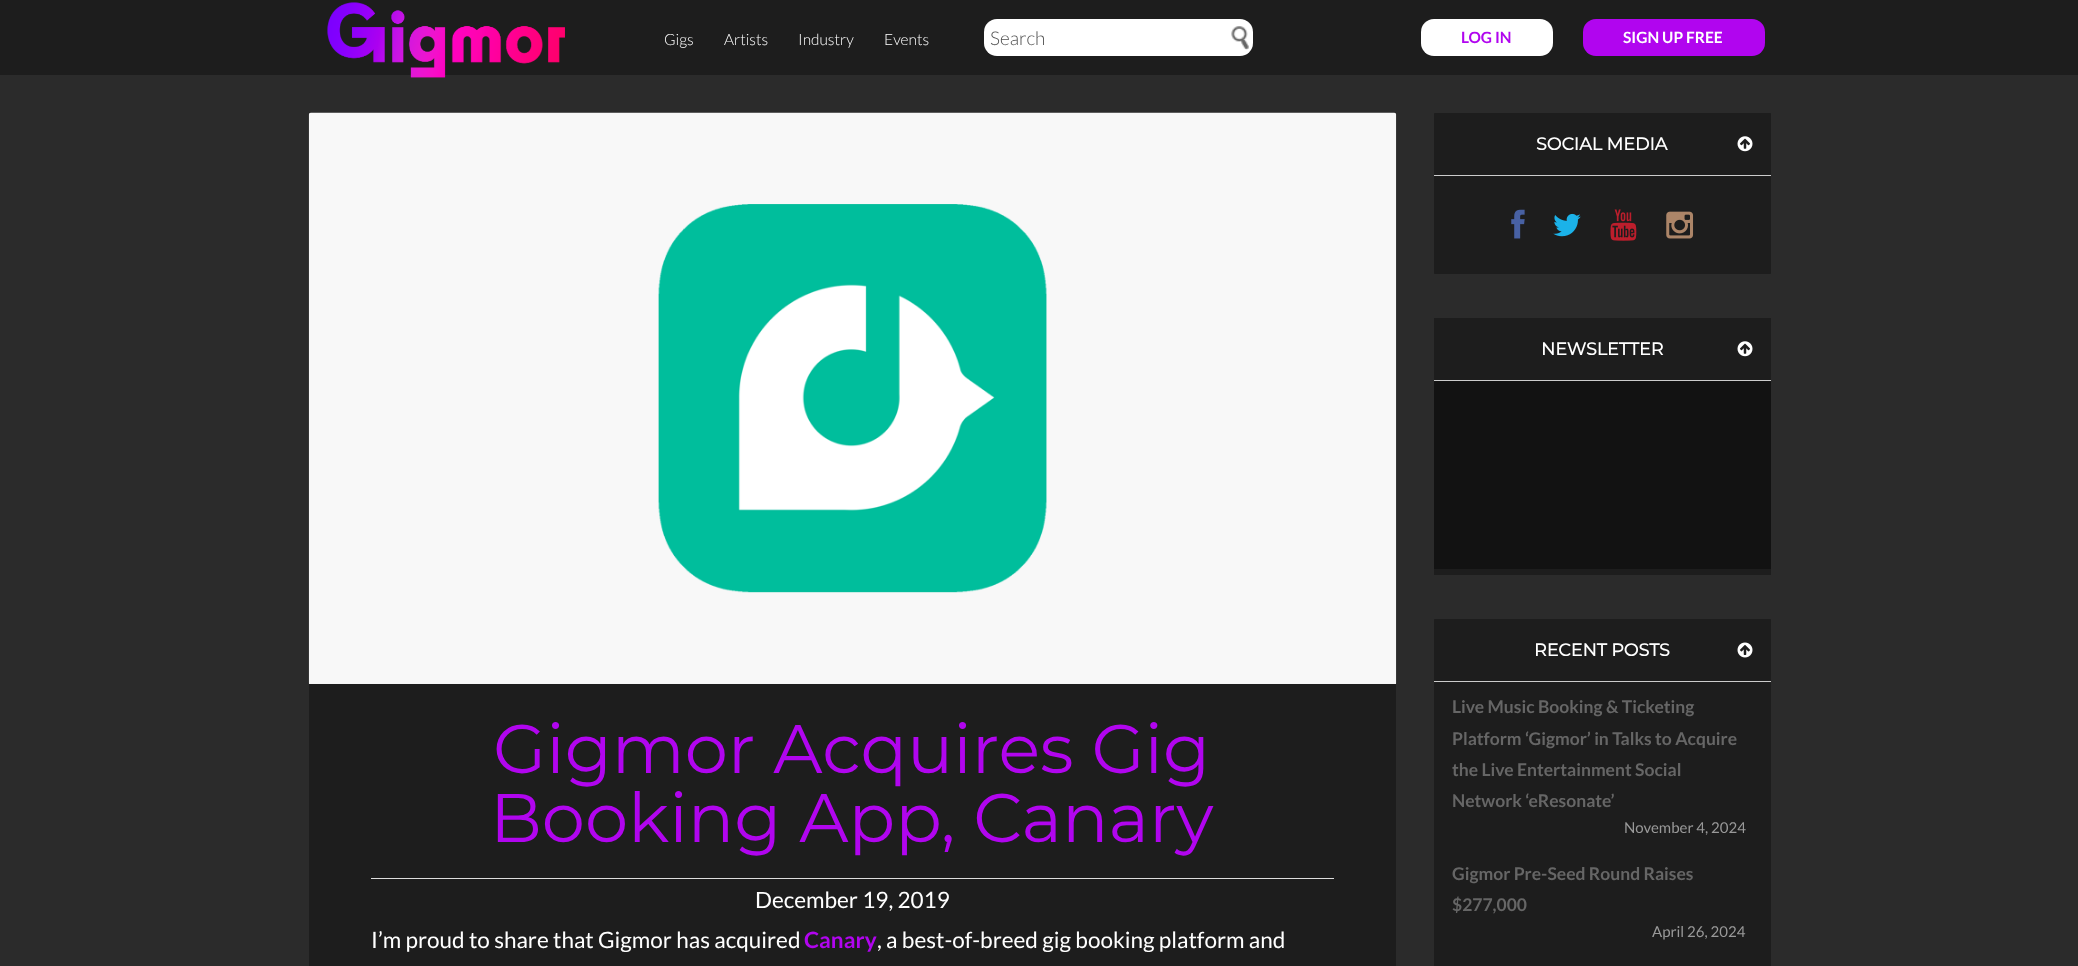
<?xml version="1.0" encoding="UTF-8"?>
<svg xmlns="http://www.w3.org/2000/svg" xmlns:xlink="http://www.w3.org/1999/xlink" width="2078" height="966">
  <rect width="100%" height="100%" fill="#2b2b2b" />
  <rect width="2078" height="75" fill="#1d1d1d" />
  <image x="327" y="2" width="238" height="76" xlink:href="image1.png" />
  <rect x="984" y="19" width="269" height="37" rx="13" fill="#ffffff" />
  <image x="1231" y="26" width="18" height="24" xlink:href="image2.png" />
  <rect x="1421" y="19" width="132" height="37" rx="13" fill="#ffffff" />
  <rect x="1583" y="19" width="182" height="37" rx="13" fill="#b105ef" />
  <rect x="309" y="113" width="1087" height="853" fill="#1d1d1d" />
  <path d="M 314 113 h 1077 c 3 0 5 2 5 5 v 566 h -1087 v -566 c 0 -3 2 -5 5 -5 z" fill="#f4f4f4" />
  <image x="308" y="112" width="1089" height="572" xlink:href="image3.png" />
  <rect x="371" y="878" width="963" height="1" fill="#dddddd" />
  <rect x="1434" y="113" width="337" height="161" rx="1" fill="#1d1d1d" />
  <rect x="1434" y="175" width="337" height="1" fill="#cccccc" />
  <image x="1737" y="136" width="16" height="16" xlink:href="image4.png" />
  <image x="1511" y="209" width="14" height="30" xlink:href="image5.png" />
  <image x="1553" y="213" width="28" height="24" xlink:href="image6.png" />
  <image x="1610" y="209" width="27" height="32" xlink:href="image7.png" />
  <image x="1666" y="211" width="28" height="28" xlink:href="image8.png" />
  <rect x="1434" y="318" width="337" height="257" fill="#1d1d1d" />
  <rect x="1434" y="380" width="337" height="1" fill="#cccccc" />
  <image x="1737" y="341" width="16" height="16" xlink:href="image4.png" />
  <rect x="1434" y="381" width="337" height="188" fill="#121212" />
  <rect x="1434" y="619" width="337" height="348" rx="1" fill="#1d1d1d" />
  <rect x="1434" y="681" width="337" height="1" fill="#cccccc" />
  <image x="1737" y="642" width="16" height="16" xlink:href="image9.png" />
  <text x="664" y="45" style="font-family: Lato; font-size: 15.5px; font-weight: 300; fill: #ffffff">Gigs</text>
  <text x="724" y="45" style="font-family: Lato; font-size: 15.5px; font-weight: 300; fill: #ffffff">Artists</text>
  <text x="798" y="45" style="font-family: Lato; font-size: 15.5px; font-weight: 300; fill: #ffffff">Industry</text>
  <text x="884" y="45" style="font-family: Lato; font-size: 15.5px; font-weight: 300; fill: #ffffff">Events</text>
  <text x="990" y="45" style="font-family: Lato; font-size: 19px; font-weight: 300; fill: #505050">Search</text>
  <text x="1461" y="43" style="font-family: Lato; font-size: 15.5px; font-weight: bold; fill: #b105ef">LOG IN</text>
  <text x="1623" y="43" style="font-family: Lato; font-size: 15.5px; font-weight: bold; fill: #ffffff">SIGN UP FREE</text>
  <text x="493" y="773" style="font-family: Montserrat; font-size: 68.75px; font-weight: 100; fill: #b105ef">Gigmor Acquires Gig</text>
  <text x="490" y="842" style="font-family: Montserrat; font-size: 68.75px; font-weight: 100; fill: #b105ef">Booking App, Canary</text>
  <text x="755" y="908" style="font-family: Lato; font-size: 22.5px; fill: #ffffff">December 19, 2019</text>
  <text x="371" y="948" style="font-family: Lato; font-size: 22.5px; fill: #ffffff">I’m proud to share that Gigmor has acquired</text>
  <text x="804" y="948" style="font-family: Lato; font-size: 22.5px; font-weight: bold; fill: #b105ef">Canary</text>
  <text x="877" y="948" style="font-family: Lato; font-size: 22.5px; fill: #ffffff">, a best-of-breed gig booking platform and</text>
  <text x="1536" y="150" style="font-family: Montserrat; font-size: 17.5px; font-weight: bold; fill: #ffffff">SOCIAL MEDIA</text>
  <text x="1541" y="355" style="font-family: Montserrat; font-size: 17.5px; font-weight: bold; fill: #ffffff">NEWSLETTER</text>
  <text x="1534" y="656" style="font-family: Montserrat; font-size: 17.5px; font-weight: bold; fill: #ffffff">RECENT POSTS</text>
  <text x="1452" y="713" style="font-family: Lato; font-size: 17.5px; font-weight: bold; fill: #666666">Live Music Booking &amp; Ticketing</text>
  <text x="1452" y="745" style="font-family: Lato; font-size: 17.5px; font-weight: bold; fill: #666666">Platform ‘Gigmor’ in Talks to Acquire</text>
  <text x="1452" y="776" style="font-family: Lato; font-size: 17.5px; font-weight: bold; fill: #666666">the Live Entertainment Social</text>
  <text x="1452" y="807" style="font-family: Lato; font-size: 17.5px; font-weight: bold; fill: #666666">Network ‘eResonate’</text>
  <text x="1624" y="833" style="font-family: Lato; font-size: 15px; fill: #999999">November 4, 2024</text>
  <text x="1452" y="880" style="font-family: Lato; font-size: 17.5px; font-weight: bold; fill: #666666">Gigmor Pre-Seed Round Raises</text>
  <text x="1452" y="911" style="font-family: Lato; font-size: 17.5px; font-weight: bold; fill: #666666">$277,000</text>
  <text x="1652" y="937" style="font-family: Lato; font-size: 15px; fill: #999999">April 26, 2024</text>
</svg>
